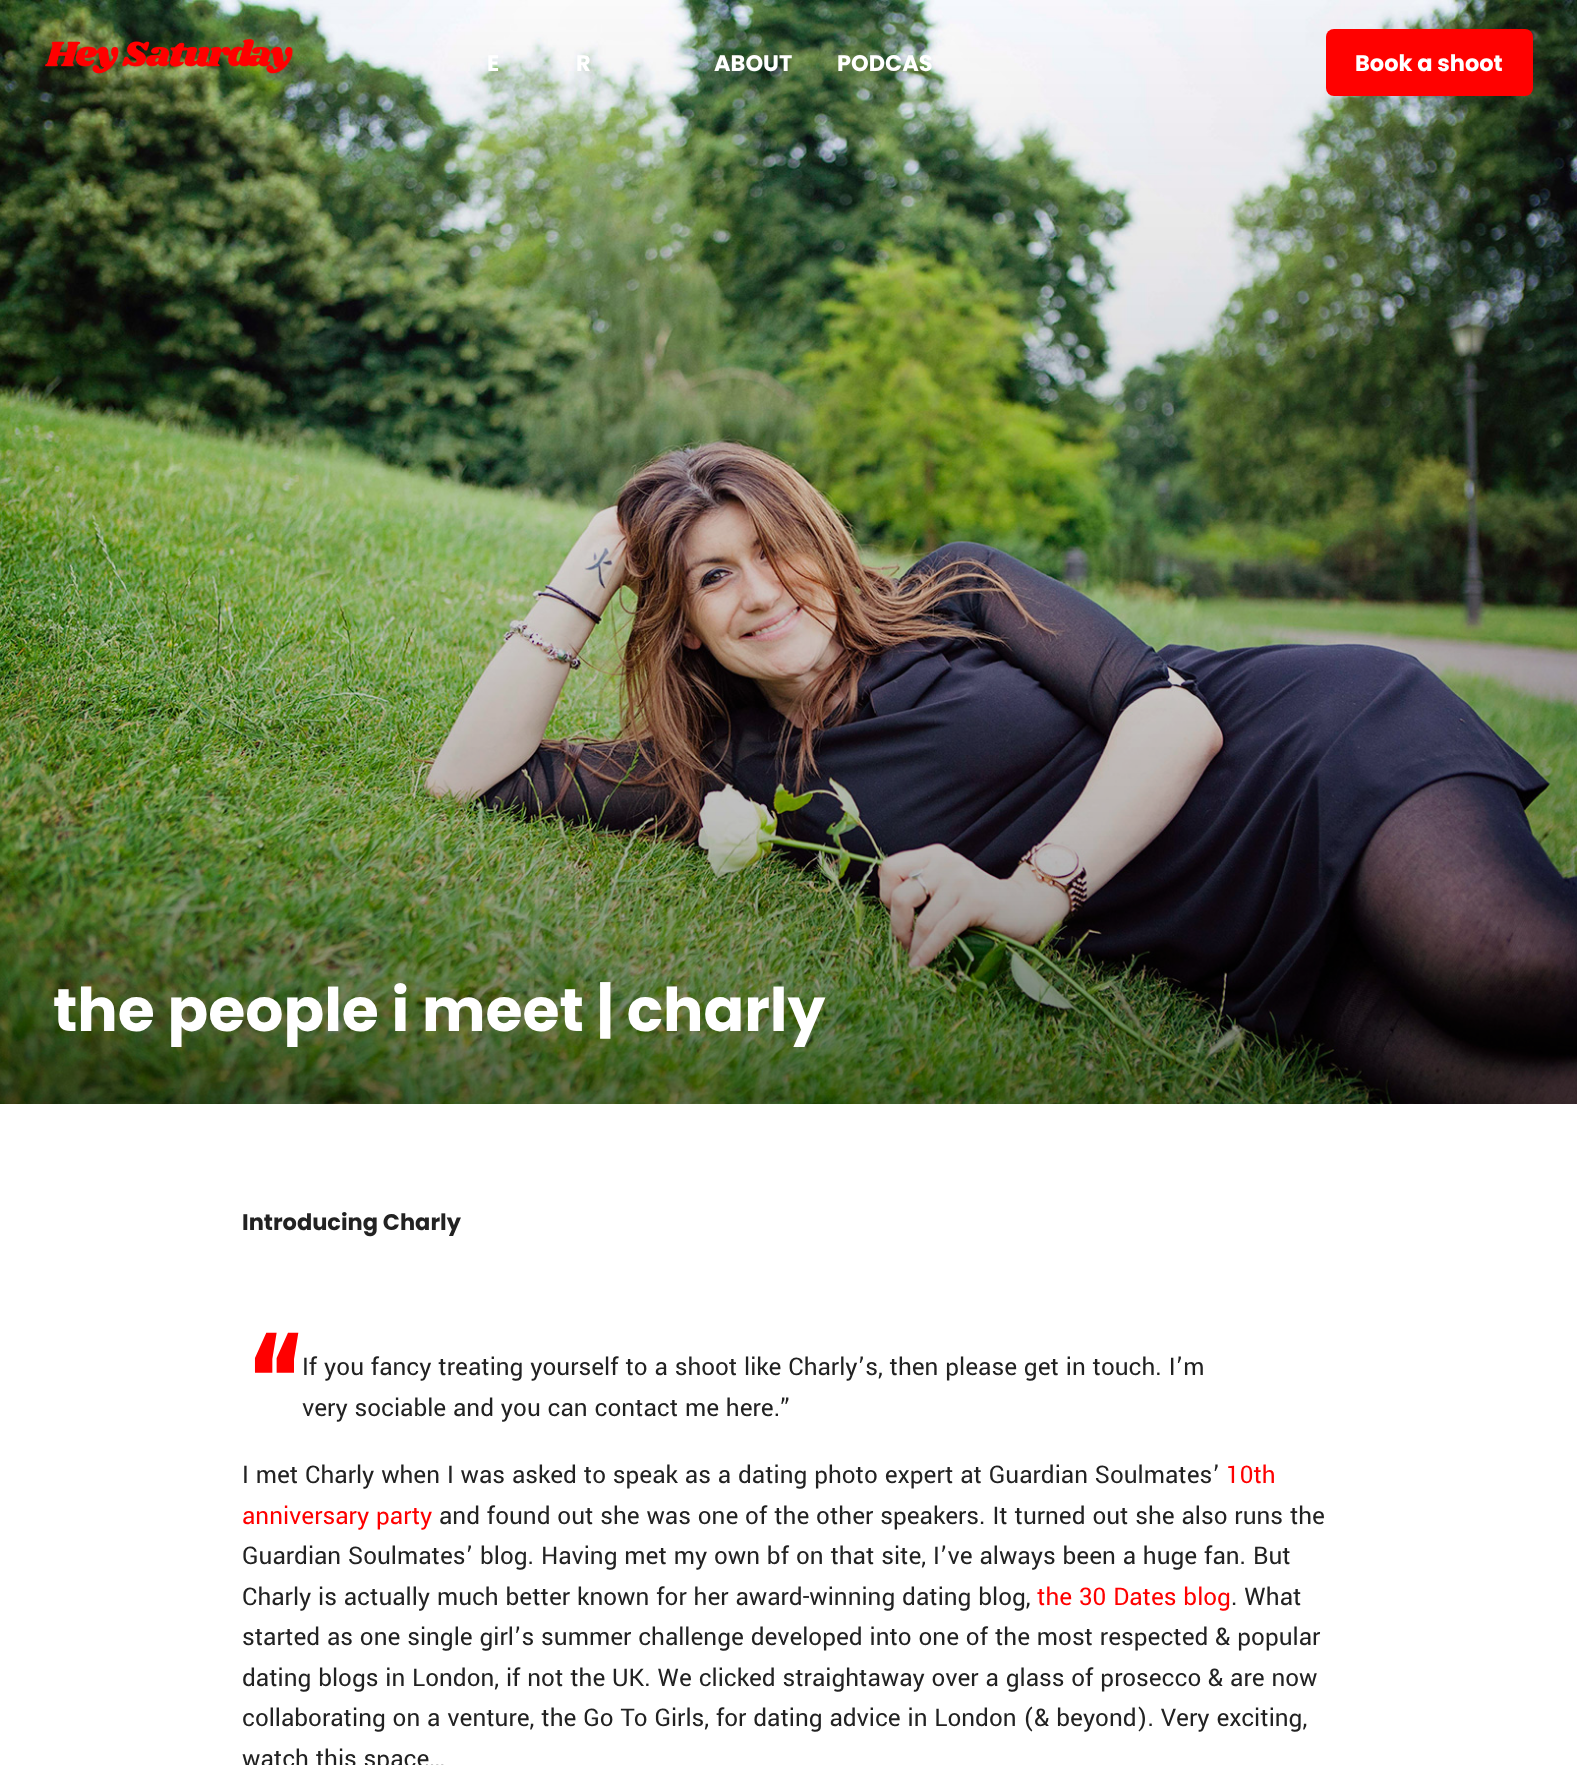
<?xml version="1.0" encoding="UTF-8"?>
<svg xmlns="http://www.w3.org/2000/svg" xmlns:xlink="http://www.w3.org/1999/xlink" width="1577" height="1765">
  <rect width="100%" height="100%" fill="#ffffff" />
  <image x="0" y="0" width="1577" height="1104" xlink:href="image2.png" />
  <image x="45" y="39" width="248" height="35" xlink:href="image1.png" />
  <rect x="1326" y="29" width="207" height="67" rx="8" fill="#ff0100" />
  <text x="487" y="71" style="font-family: Poppins; font-size: 22.5px; font-weight: bold; fill: #ffffff">E</text>
  <text x="576" y="71" style="font-family: Poppins; font-size: 22.5px; font-weight: bold; fill: #ffffff">R</text>
  <text x="714" y="71" style="font-family: Poppins; font-size: 22.5px; font-weight: bold; fill: #ffffff">ABOUT</text>
  <text x="837" y="71" style="font-family: Poppins; font-size: 22.5px; font-weight: bold; fill: #ffffff">PODCAS</text>
  <text x="1355" y="71" style="font-family: Poppins; font-size: 22.5px; font-weight: bold; fill: #ffffff">Book a shoot</text>
  <text x="53" y="1031" style="font-family: Poppins; font-size: 60px; font-weight: bold; fill: #ffffff">the people i meet | charly</text>
  <text x="242" y="1230" style="font-family: Poppins; font-size: 22.5px; font-weight: bold; fill: #222222">Introducing Charly</text>
  <text x="242" y="1440" style="font-family: Yantramanav; font-size: 150px; font-weight: bold; fill: #ff0000">“</text>
  <text x="302" y="1375" style="font-family: Yantramanav; font-size: 27px; fill: #222222">If you fancy treating yourself to a shoot like Charly’s, then please get in touch. I’m</text>
  <text x="302" y="1416" style="font-family: Yantramanav; font-size: 27px; fill: #222222">very sociable and you can contact me here.”</text>
  <text x="242" y="1483" style="font-family: Yantramanav; font-size: 27px; fill: #222222">I met Charly when I was asked to speak as a dating photo expert at Guardian Soulmates’</text>
  <text x="1226" y="1483" style="font-family: Yantramanav; font-size: 27px; fill: #ff0000">10th</text>
  <text x="242" y="1524" style="font-family: Yantramanav; font-size: 27px; fill: #ff0000">anniversary party</text>
  <text x="439" y="1524" style="font-family: Yantramanav; font-size: 27px; fill: #222222">and found out she was one of the other speakers. It turned out she also runs the</text>
  <text x="242" y="1564" style="font-family: Yantramanav; font-size: 27px; fill: #222222">Guardian Soulmates’ blog. Having met my own bf on that site, I’ve always been a huge fan. But</text>
  <text x="242" y="1605" style="font-family: Yantramanav; font-size: 27px; fill: #222222">Charly is actually much better known for her award-winning dating blog,</text>
  <text x="1037" y="1605" style="font-family: Yantramanav; font-size: 27px; fill: #ff0000">the 30 Dates blog</text>
  <text x="1231" y="1605" style="font-family: Yantramanav; font-size: 27px; fill: #222222">. What</text>
  <text x="242" y="1645" style="font-family: Yantramanav; font-size: 27px; fill: #222222">started as one single girl’s summer challenge developed into one of the most respected &amp; popular</text>
  <text x="242" y="1686" style="font-family: Yantramanav; font-size: 27px; fill: #222222">dating blogs in London, if not the UK. We clicked straightaway over a glass of prosecco &amp; are now</text>
  <text x="242" y="1726" style="font-family: Yantramanav; font-size: 27px; fill: #222222">collaborating on a venture, the Go To Girls, for dating advice in London (&amp; beyond). Very exciting,</text>
  <text x="242" y="1767" style="font-family: Yantramanav; font-size: 27px; fill: #222222">watch this space…</text>
</svg>
